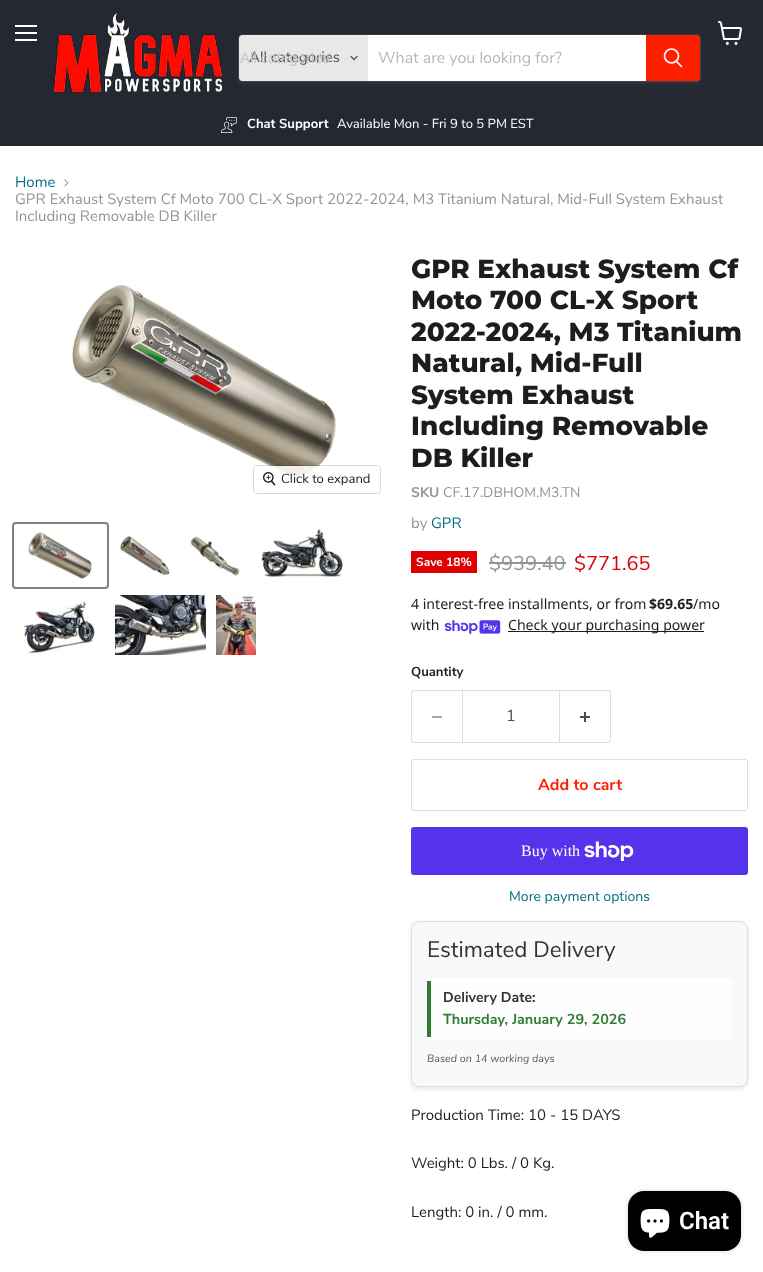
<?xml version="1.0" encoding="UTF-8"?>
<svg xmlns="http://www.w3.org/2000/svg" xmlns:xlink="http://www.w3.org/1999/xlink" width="763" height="1272">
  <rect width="100%" height="100%" fill="#ffffff" />
  <rect width="763" height="146" fill="#242833" />
  <rect x="15" y="25" width="22" height="2" fill="#ffffff" />
  <rect x="15" y="32" width="22" height="2" fill="#ffffff" />
  <rect x="15" y="39" width="22" height="2" fill="#ffffff" />
  <image x="718" y="21" width="24" height="24" xlink:href="image1.png" />
  <image x="53" y="13" width="170" height="80" xlink:href="image2.png" />
  <rect x="238" y="36" width="463" height="48" rx="4" fill="#808080" fill-opacity="0.11" filter="blur(1.5px)" />
  <rect x="238.5" y="34.5" width="462" height="47" rx="3.5" fill="none" stroke="#808080" stroke-opacity="0.2" />
  <path d="M 242 35 h 126 v 46 h -126 c -1.5 0 -3 -1.5 -3 -3 v -40 c 0 -1.5 1.5 -3 3 -3 z" fill="#e8e8e8" />
  <image x="350" y="55" width="8" height="6" xlink:href="image3.png" />
  <rect x="368" y="35" width="278" height="46" fill="#ffffff" />
  <path d="M 646.5 35.5 h 50.5 c 1.5 0 2.5 1 2.5 2.5 v 40 c 0 1.5 -1 2.5 -2.5 2.5 h -50.5 z" fill="#fd2000" stroke="#fd2000" />
  <path d="M 681.5 66.5 l -5 -5" fill="none" stroke="#ffffff" stroke-width="1.7" stroke-linecap="round" />
  <circle cx="671.5" cy="56" r="7" fill="none" stroke="#ffffff" stroke-width="1.7" />
  <image x="221" y="117" width="16" height="16" xlink:href="image4.png" />
  <image x="64" y="179" width="5" height="8" xlink:href="image5.png" />
  <image x="72" y="284" width="264" height="193" xlink:href="image6.png" />
  <rect x="253.5" y="465.5" width="127" height="28" rx="3.5" fill="none" stroke="#000000" stroke-opacity="0.15" />
  <rect x="254" y="466" width="126" height="27" rx="3" fill="#ffffff" fill-opacity="0.9" />
  <image x="263" y="472" width="13" height="14" xlink:href="image7.png" />
  <rect x="13" y="523" width="95" height="65" rx="3" fill="none" stroke="#818181" stroke-width="2" />
  <image x="28" y="532" width="64" height="47" xlink:href="image8.png" />
  <image x="119" y="536" width="51" height="40" xlink:href="image9.png" />
  <image x="190" y="536" width="51" height="40" xlink:href="image10.png" />
  <image x="261" y="529" width="82" height="48" xlink:href="image11.png" />
  <image x="22" y="601" width="73" height="53" xlink:href="image12.png" />
  <image x="115" y="595" width="91" height="60" xlink:href="image13.png" />
  <image x="216" y="595" width="40" height="60" xlink:href="image14.png" />
  <rect x="411" y="551" width="66" height="22" fill="#de0101" />
  <rect x="489" y="562" width="77" height="2" fill="#949494" />
  <image x="444" y="620" width="57" height="14" xlink:href="image15.png" />
  <rect x="508" y="631" width="196" height="1" fill="#1d1d1d" />
  <path d="M 414 690 h 48 v 53 h -48 c -2 0 -3 -1 -3 -3 v -47 c 0 -2 1 -3 3 -3 z m 0 1 h 48 v 51 h -48 c -1 0 -2 -1 -2 -2 v -47 c 0 -1 1 -2 2 -2 z" fill="#dddddd" fill-rule="evenodd" />
  <rect x="432" y="716" width="10" height="2" fill="#a6a6a6" />
  <rect x="462.5" y="690.5" width="97" height="52" fill="none" stroke="#dddddd" />
  <path d="M 560 690 h 48 c 2 0 3 1 3 3 v 47 c 0 2 -1 3 -3 3 h -48 z m 0 1 h 48 c 1 0 2 1 2 2 v 47 c 0 1 -1 2 -2 2 h -48 z" fill="#dddddd" fill-rule="evenodd" />
  <image x="580" y="712" width="10" height="10" xlink:href="image16.png" />
  <rect x="411.5" y="759.5" width="336" height="51" rx="2.5" fill="none" stroke="#dddddd" />
  <rect x="411" y="827" width="337" height="48" rx="3" fill="#5433eb" />
  <image x="584" y="841" width="50" height="20" xlink:href="image17.png" />
  <rect x="411" y="923" width="337" height="166" rx="8" fill="#000000" fill-opacity="0.1" filter="blur(2px)" />
  <rect x="411.5" y="921.5" width="336" height="165" rx="7.5" fill="#f8f9fa" stroke="#e0e0e0" />
  <rect x="427" y="978" width="305" height="62" rx="6" fill="#fefefe" />
  <rect x="427" y="981" width="4" height="56" fill="#2e7d32" />
  <rect x="628" y="1191" width="113" height="60" rx="16" fill="#000000" fill-opacity="0.15" filter="blur(2.5px)" />
  <rect x="628" y="1191" width="113" height="60" rx="16" fill="#000000" />
  <image x="640" y="1209" width="30" height="29" xlink:href="image18.png" />
  <text x="249" y="62" style="font-family: Nunito Sans; font-size: 15px; fill: #4d4d4d">All categories</text>
  <text x="240" y="63" style="font-family: Liberation Sans; font-size: 15px; fill: #c5c5c5">All categories</text>
  <text x="378" y="63" style="font-family: Nunito Sans; font-size: 16px; fill: #b8b8b8">What are you looking for?</text>
  <text x="247" y="128" style="font-family: Nunito Sans; font-size: 13.1px; font-weight: bold; fill: #ffffff">Chat Support</text>
  <text x="337" y="128" style="font-family: Nunito Sans; font-size: 13.1px; fill: #ffffff">Available Mon - Fri 9 to 5 PM EST</text>
  <text x="15" y="187" style="font-family: Nunito Sans; font-size: 15px; fill: #046e82">Home</text>
  <text x="15" y="204" style="font-family: Nunito Sans; font-size: 15px; fill: #949494">GPR Exhaust System Cf Moto 700 CL-X Sport 2022-2024, M3 Titanium Natural, Mid-Full System Exhaust</text>
  <text x="15" y="221" style="font-family: Nunito Sans; font-size: 15px; fill: #949494">Including Removable DB Killer</text>
  <text x="281" y="483" style="font-family: Nunito Sans; font-size: 13.1px; fill: #1d1d1d">Click to expand</text>
  <text x="411" y="278" style="font-family: Montserrat; font-size: 26.25px; font-weight: 800; fill: #1d1d1d">GPR Exhaust System Cf</text>
  <text x="411" y="309" style="font-family: Montserrat; font-size: 26.25px; font-weight: 800; fill: #1d1d1d">Moto 700 CL-X Sport</text>
  <text x="411" y="341" style="font-family: Montserrat; font-size: 26.25px; font-weight: 800; fill: #1d1d1d">2022-2024, M3 Titanium</text>
  <text x="411" y="372" style="font-family: Montserrat; font-size: 26.25px; font-weight: 800; fill: #1d1d1d">Natural, Mid-Full</text>
  <text x="411" y="404" style="font-family: Montserrat; font-size: 26.25px; font-weight: 800; fill: #1d1d1d">System Exhaust</text>
  <text x="411" y="435" style="font-family: Montserrat; font-size: 26.25px; font-weight: 800; fill: #1d1d1d">Including Removable</text>
  <text x="411" y="467" style="font-family: Montserrat; font-size: 26.25px; font-weight: 800; fill: #1d1d1d">DB Killer</text>
  <text x="411" y="497" style="font-family: Nunito Sans; font-size: 14px; font-weight: bold; fill: #949494">SKU</text>
  <text x="443" y="497" style="font-family: Nunito Sans; font-size: 14px; fill: #949494">CF.17.DBHOM.M3.TN</text>
  <text x="411" y="528" style="font-family: Nunito Sans; font-size: 15px; fill: #949494">by</text>
  <text x="431" y="528" style="font-family: Nunito Sans; font-size: 15px; fill: #046e82">GPR</text>
  <text x="416" y="566" style="font-family: Nunito Sans; font-size: 12px; font-weight: bold; fill: #ffffff">Save 18%</text>
  <text x="489" y="570" style="font-family: Nunito Sans; font-size: 20px; fill: #949494">$939.40</text>
  <text x="574" y="570" style="font-family: Nunito Sans; font-size: 20px; fill: #de0101">$771.65</text>
  <text x="411" y="609" style="font-family: Noto Sans; font-size: 14.1px; fill: #1d1d1d">4 interest-free installments, or from</text>
  <text x="649" y="609" style="font-family: Noto Sans; font-size: 14.1px; font-weight: bold; fill: #1d1d1d">$69.65</text>
  <text x="693" y="609" style="font-family: Noto Sans; font-size: 14.1px; fill: #1d1d1d">/mo</text>
  <text x="411" y="630" style="font-family: Noto Sans; font-size: 14.1px; fill: #1d1d1d">with</text>
  <text x="508" y="630" style="font-family: Noto Sans; font-size: 14.1px; fill: #1d1d1d">Check your purchasing power</text>
  <text x="411" y="676" style="font-family: Nunito Sans; font-size: 13.1px; font-weight: bold; fill: #1d1d1d">Quantity</text>
  <text x="506" y="721" style="font-family: Nunito Sans; font-size: 16px; fill: #4d4d4d">1</text>
  <text x="538" y="790" style="font-family: Nunito Sans; font-size: 16px; font-weight: bold; fill: #fd2000">Add to cart</text>
  <text x="521" y="856" style="font-family: Liberation Serif; font-size: 16px; fill: #ffffff">Buy with</text>
  <text x="509" y="901" style="font-family: Nunito Sans; font-size: 14.1px; fill: #046e82">More payment options</text>
  <text x="427" y="957" style="font-family: Nunito Sans; font-size: 22.5px; fill: #333333">Estimated Delivery</text>
  <text x="443" y="1002" style="font-family: Nunito Sans; font-size: 14.25px; font-weight: bold; fill: #333333">Delivery Date:</text>
  <text x="443" y="1024" style="font-family: Nunito Sans; font-size: 14.4px; font-weight: bold; fill: #2e7d32">Thursday, January 29, 2026</text>
  <text x="427" y="1062" style="font-family: Nunito Sans; font-size: 10.75px; font-style: italic; fill: #5a5b5b">Based on 14 working days</text>
  <text x="411" y="1120" style="font-family: Nunito Sans; font-size: 15px; fill: #1d1d1d">Production Time: 10 - 15 DAYS</text>
  <text x="411" y="1168" style="font-family: Nunito Sans; font-size: 15px; fill: #1d1d1d">Weight: 0 Lbs. / 0 Kg.</text>
  <text x="411" y="1217" style="font-family: Nunito Sans; font-size: 15px; fill: #1d1d1d">Length: 0 in. / 0 mm.</text>
  <text x="679" y="1229" style="font-family: Roboto; font-size: 24px; font-weight: 600; fill: #ffffff">Chat</text>
</svg>
